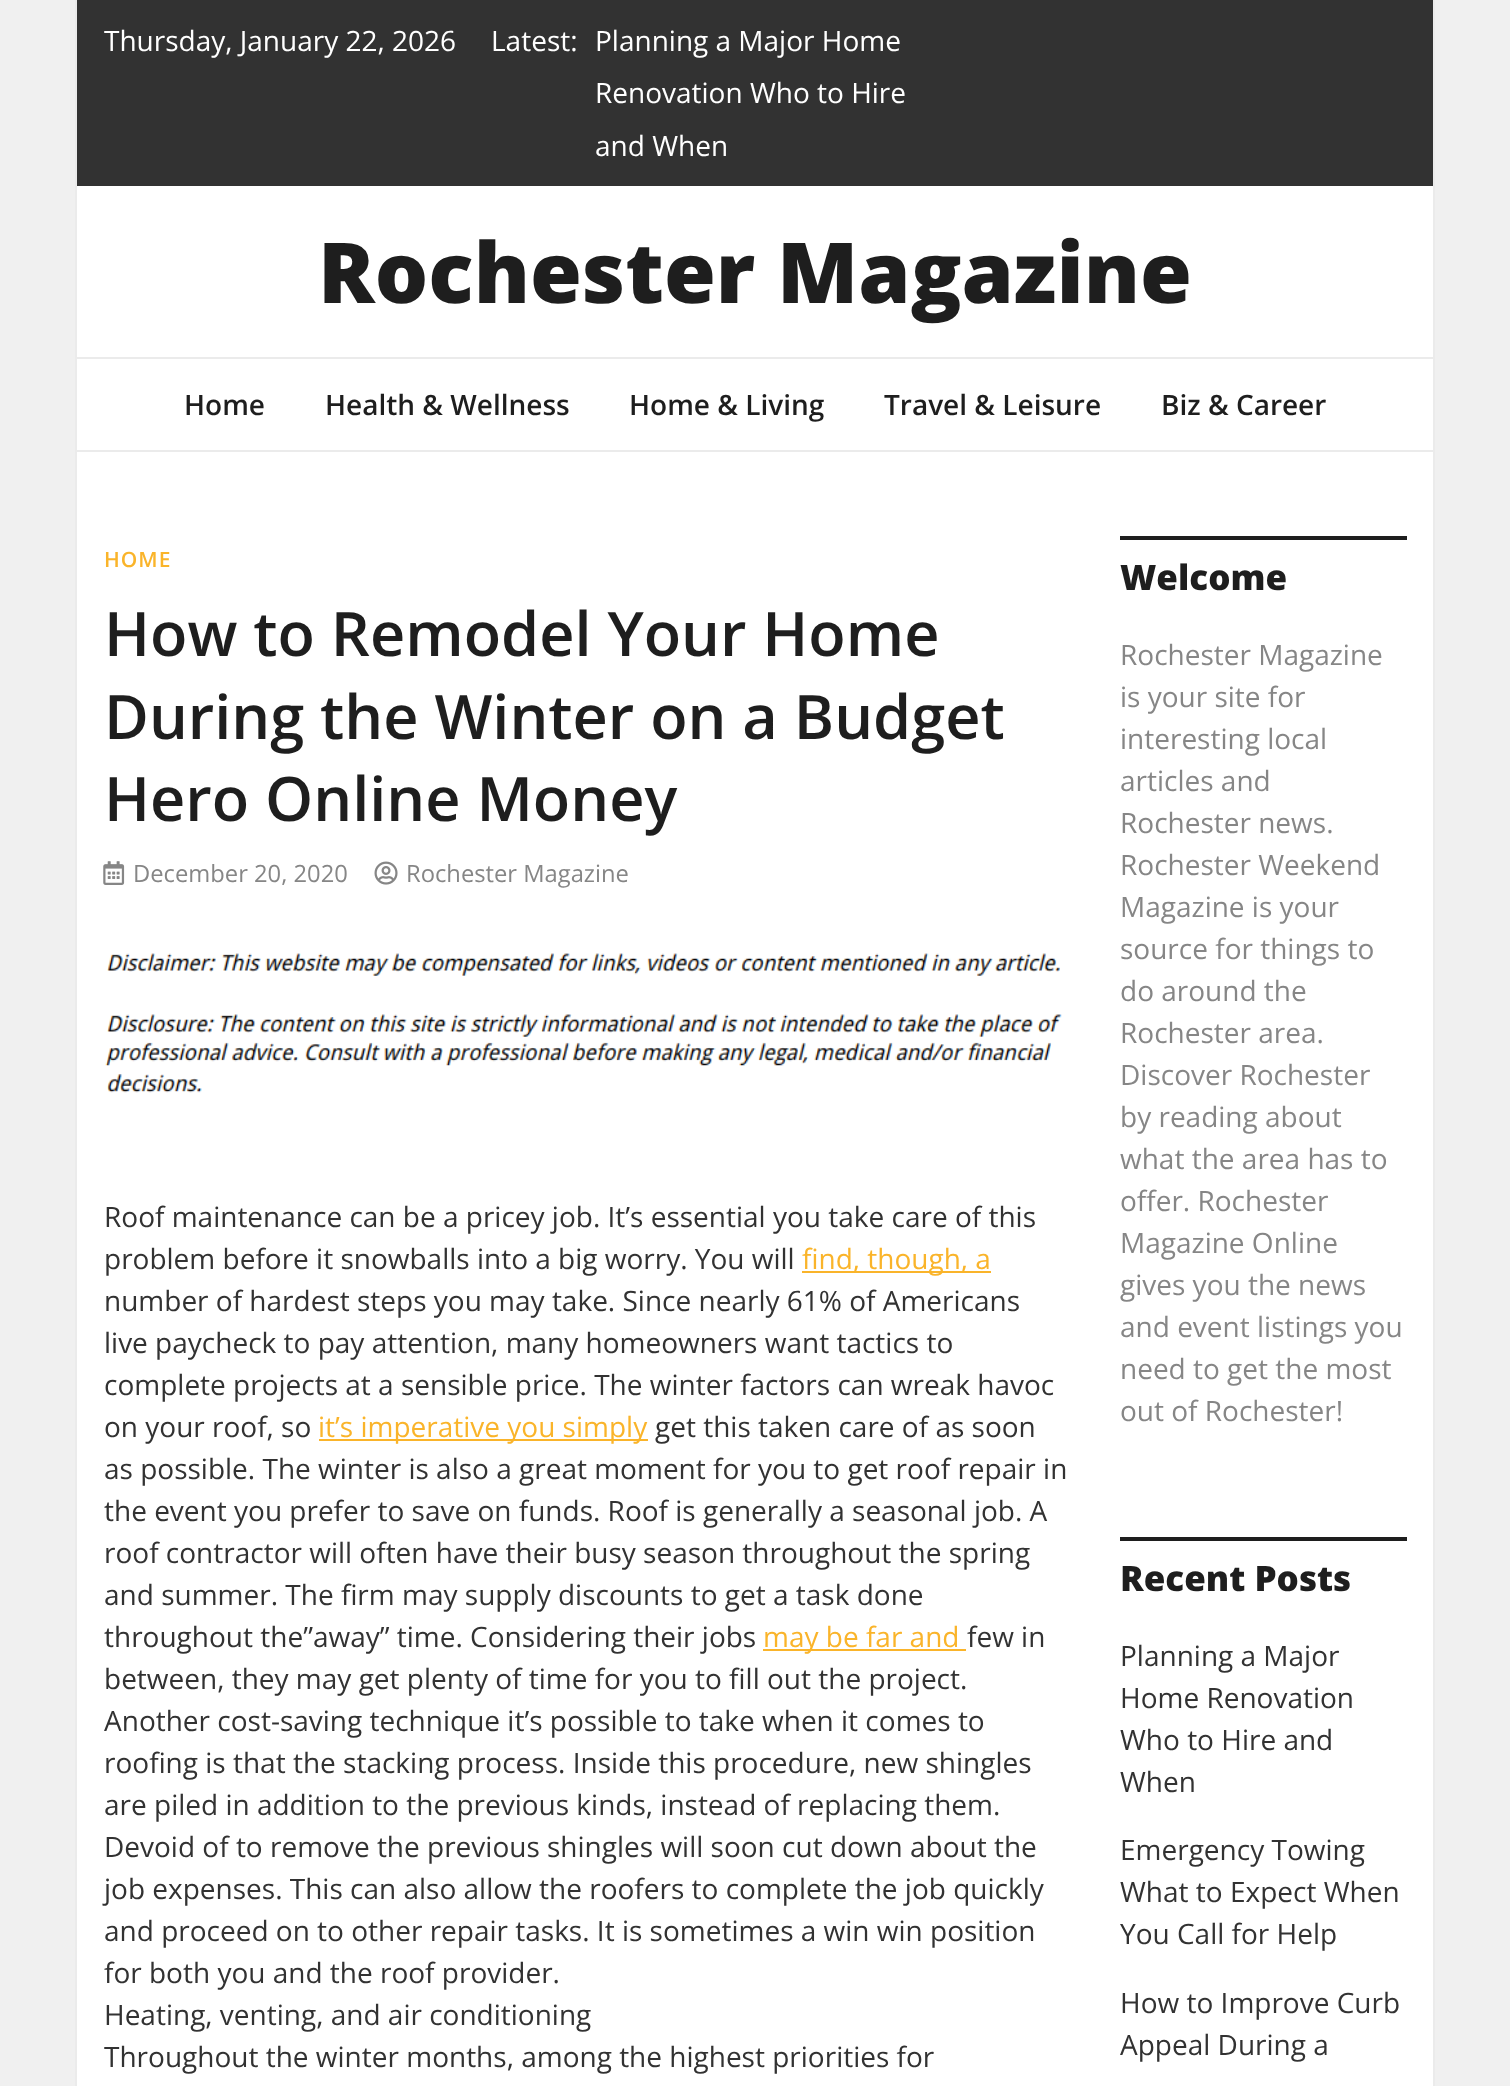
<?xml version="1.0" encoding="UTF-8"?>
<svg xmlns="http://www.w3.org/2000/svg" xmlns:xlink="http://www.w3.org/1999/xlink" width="1510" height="2086">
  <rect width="100%" height="100%" fill="#f0f0f0" />
  <rect x="77" y="186" width="1356" height="1900" fill="#ffffff" />
  <rect x="1433" width="2" height="2086" fill="#ebebeb" />
  <rect x="75" width="2" height="2086" fill="#ebebeb" />
  <rect x="77" width="1356" height="186" fill="#323232" />
  <rect x="77" y="357" width="1356" height="2" fill="#ebebeb" />
  <rect x="77" y="450" width="1356" height="2" fill="#ebebeb" />
  <image x="103" y="861" width="22" height="24" xlink:href="image1.png" />
  <image x="374" y="861" width="24" height="24" xlink:href="image2.png" />
  <image x="105" y="953" width="957" height="140" xlink:href="image3.png" />
  <rect x="802" y="1271" width="189" height="2" fill="#fab42a" />
  <rect x="319" y="1439" width="329" height="2" fill="#fab42a" />
  <rect x="763" y="1649" width="203" height="2" fill="#fab42a" />
  <rect x="1120" y="536" width="287" height="4" fill="#1e1e1e" />
  <rect x="1120" y="1537" width="287" height="4" fill="#1e1e1e" />
  <text x="104" y="51" style="font-family: Open Sans; font-size: 28px; fill: #ffffff">Thursday, January 22, 2026</text>
  <text x="491" y="51" style="font-family: Open Sans; font-size: 28px; fill: #ffffff">Latest:</text>
  <text x="595" y="51" style="font-family: Open Sans; font-size: 28px; fill: #ffffff">Planning a Major Home</text>
  <text x="595" y="103" style="font-family: Open Sans; font-size: 28px; fill: #ffffff">Renovation Who to Hire</text>
  <text x="595" y="156" style="font-family: Open Sans; font-size: 28px; fill: #ffffff">and When</text>
  <text x="318" y="303" style="font-family: Open Sans; font-size: 84px; font-weight: 800; fill: #1e1e1e">Rochester Magazine</text>
  <text x="184" y="415" style="font-family: Open Sans; font-size: 28px; font-weight: 600; fill: #1e1e1e">Home</text>
  <text x="325" y="415" style="font-family: Open Sans; font-size: 28px; font-weight: 600; fill: #1e1e1e">Health &amp; Wellness</text>
  <text x="629" y="415" style="font-family: Open Sans; font-size: 28px; font-weight: 600; fill: #1e1e1e">Home &amp; Living</text>
  <text x="884" y="415" style="font-family: Open Sans; font-size: 28px; font-weight: 600; fill: #1e1e1e">Travel &amp; Leisure</text>
  <text x="1161" y="415" style="font-family: Open Sans; font-size: 28px; font-weight: 600; fill: #1e1e1e">Biz &amp; Career</text>
  <text x="104" y="567" style="font-family: Open Sans; font-size: 21px; font-weight: 600; letter-spacing: 1px; fill: #fab42a">HOME</text>
  <text x="104" y="656" style="font-family: Open Sans; font-size: 61.25px; font-weight: 600; fill: #1e1e1e">How to Remodel Your Home</text>
  <text x="104" y="739" style="font-family: Open Sans; font-size: 61.25px; font-weight: 600; fill: #1e1e1e">During the Winter on a Budget</text>
  <text x="104" y="821" style="font-family: Open Sans; font-size: 61.25px; font-weight: 600; fill: #1e1e1e">Hero Online Money</text>
  <text x="133" y="882" style="font-family: Open Sans; font-size: 23.75px; fill: #868686">December 20, 2020</text>
  <text x="406" y="882" style="font-family: Open Sans; font-size: 23.75px; fill: #868686">Rochester Magazine</text>
  <text x="104" y="1227" style="font-family: Open Sans; font-size: 28px; fill: #323232">Roof maintenance can be a pricey job. It’s essential you take care of this</text>
  <text x="104" y="1269" style="font-family: Open Sans; font-size: 28px; fill: #323232">problem before it snowballs into a big worry. You will</text>
  <text x="802" y="1269" style="font-family: Open Sans; font-size: 28px; fill: #fab42a">find, though, a</text>
  <text x="104" y="1311" style="font-family: Open Sans; font-size: 28px; fill: #323232">number of hardest steps you may take. Since nearly 61% of Americans</text>
  <text x="104" y="1353" style="font-family: Open Sans; font-size: 28px; fill: #323232">live paycheck to pay attention, many homeowners want tactics to</text>
  <text x="104" y="1395" style="font-family: Open Sans; font-size: 28px; fill: #323232">complete projects at a sensible price. The winter factors can wreak havoc</text>
  <text x="104" y="1437" style="font-family: Open Sans; font-size: 28px; fill: #323232">on your roof, so</text>
  <text x="318" y="1437" style="font-family: Open Sans; font-size: 28px; fill: #fab42a">it’s imperative you simply</text>
  <text x="655" y="1437" style="font-family: Open Sans; font-size: 28px; fill: #323232">get this taken care of as soon</text>
  <text x="104" y="1479" style="font-family: Open Sans; font-size: 28px; fill: #323232">as possible. The winter is also a great moment for you to get roof repair in</text>
  <text x="104" y="1521" style="font-family: Open Sans; font-size: 28px; fill: #323232">the event you prefer to save on funds. Roof is generally a seasonal job. A</text>
  <text x="104" y="1563" style="font-family: Open Sans; font-size: 28px; fill: #323232">roof contractor will often have their busy season throughout the spring</text>
  <text x="104" y="1605" style="font-family: Open Sans; font-size: 28px; fill: #323232">and summer. The firm may supply discounts to get a task done</text>
  <text x="104" y="1647" style="font-family: Open Sans; font-size: 28px; fill: #323232">throughout the”away” time. Considering their jobs</text>
  <text x="763" y="1647" style="font-family: Open Sans; font-size: 28px; fill: #fab42a">may be far and</text>
  <text x="967" y="1647" style="font-family: Open Sans; font-size: 28px; fill: #323232">few in</text>
  <text x="104" y="1689" style="font-family: Open Sans; font-size: 28px; fill: #323232">between, they may get plenty of time for you to fill out the project.</text>
  <text x="104" y="1731" style="font-family: Open Sans; font-size: 28px; fill: #323232">Another cost-saving technique it’s possible to take when it comes to</text>
  <text x="104" y="1773" style="font-family: Open Sans; font-size: 28px; fill: #323232">roofing is that the stacking process. Inside this procedure, new shingles</text>
  <text x="104" y="1815" style="font-family: Open Sans; font-size: 28px; fill: #323232">are piled in addition to the previous kinds, instead of replacing them.</text>
  <text x="104" y="1857" style="font-family: Open Sans; font-size: 28px; fill: #323232">Devoid of to remove the previous shingles will soon cut down about the</text>
  <text x="104" y="1899" style="font-family: Open Sans; font-size: 28px; fill: #323232">job expenses. This can also allow the roofers to complete the job quickly</text>
  <text x="104" y="1941" style="font-family: Open Sans; font-size: 28px; fill: #323232">and proceed on to other repair tasks. It is sometimes a win win position</text>
  <text x="104" y="1983" style="font-family: Open Sans; font-size: 28px; fill: #323232">for both you and the roof provider.</text>
  <text x="104" y="2025" style="font-family: Open Sans; font-size: 28px; fill: #323232">Heating, venting, and air conditioning</text>
  <text x="104" y="2067" style="font-family: Open Sans; font-size: 28px; fill: #323232">Throughout the winter months, among the highest priorities for</text>
  <text x="1120" y="590" style="font-family: Open Sans; font-size: 35px; font-weight: 800; fill: #1e1e1e">Welcome</text>
  <text x="1120" y="665" style="font-family: Open Sans; font-size: 28px; fill: #868686">Rochester Magazine</text>
  <text x="1120" y="707" style="font-family: Open Sans; font-size: 28px; fill: #868686">is your site for</text>
  <text x="1120" y="749" style="font-family: Open Sans; font-size: 28px; fill: #868686">interesting local</text>
  <text x="1120" y="791" style="font-family: Open Sans; font-size: 28px; fill: #868686">articles and</text>
  <text x="1120" y="833" style="font-family: Open Sans; font-size: 28px; fill: #868686">Rochester news.</text>
  <text x="1120" y="875" style="font-family: Open Sans; font-size: 28px; fill: #868686">Rochester Weekend</text>
  <text x="1120" y="917" style="font-family: Open Sans; font-size: 28px; fill: #868686">Magazine is your</text>
  <text x="1120" y="959" style="font-family: Open Sans; font-size: 28px; fill: #868686">source for things to</text>
  <text x="1120" y="1001" style="font-family: Open Sans; font-size: 28px; fill: #868686">do around the</text>
  <text x="1120" y="1043" style="font-family: Open Sans; font-size: 28px; fill: #868686">Rochester area.</text>
  <text x="1120" y="1085" style="font-family: Open Sans; font-size: 28px; fill: #868686">Discover Rochester</text>
  <text x="1120" y="1127" style="font-family: Open Sans; font-size: 28px; fill: #868686">by reading about</text>
  <text x="1120" y="1169" style="font-family: Open Sans; font-size: 28px; fill: #868686">what the area has to</text>
  <text x="1120" y="1211" style="font-family: Open Sans; font-size: 28px; fill: #868686">offer. Rochester</text>
  <text x="1120" y="1253" style="font-family: Open Sans; font-size: 28px; fill: #868686">Magazine Online</text>
  <text x="1120" y="1295" style="font-family: Open Sans; font-size: 28px; fill: #868686">gives you the news</text>
  <text x="1120" y="1337" style="font-family: Open Sans; font-size: 28px; fill: #868686">and event listings you</text>
  <text x="1120" y="1379" style="font-family: Open Sans; font-size: 28px; fill: #868686">need to get the most</text>
  <text x="1120" y="1421" style="font-family: Open Sans; font-size: 28px; fill: #868686">out of Rochester!</text>
  <text x="1120" y="1591" style="font-family: Open Sans; font-size: 35px; font-weight: 800; fill: #1e1e1e">Recent Posts</text>
  <text x="1120" y="1666" style="font-family: Open Sans; font-size: 28px; fill: #323232">Planning a Major</text>
  <text x="1120" y="1708" style="font-family: Open Sans; font-size: 28px; fill: #323232">Home Renovation</text>
  <text x="1120" y="1750" style="font-family: Open Sans; font-size: 28px; fill: #323232">Who to Hire and</text>
  <text x="1120" y="1792" style="font-family: Open Sans; font-size: 28px; fill: #323232">When</text>
  <text x="1120" y="1860" style="font-family: Open Sans; font-size: 28px; fill: #323232">Emergency Towing</text>
  <text x="1120" y="1902" style="font-family: Open Sans; font-size: 28px; fill: #323232">What to Expect When</text>
  <text x="1120" y="1944" style="font-family: Open Sans; font-size: 28px; fill: #323232">You Call for Help</text>
  <text x="1120" y="2013" style="font-family: Open Sans; font-size: 28px; fill: #323232">How to Improve Curb</text>
  <text x="1120" y="2055" style="font-family: Open Sans; font-size: 28px; fill: #323232">Appeal During a</text>
</svg>
